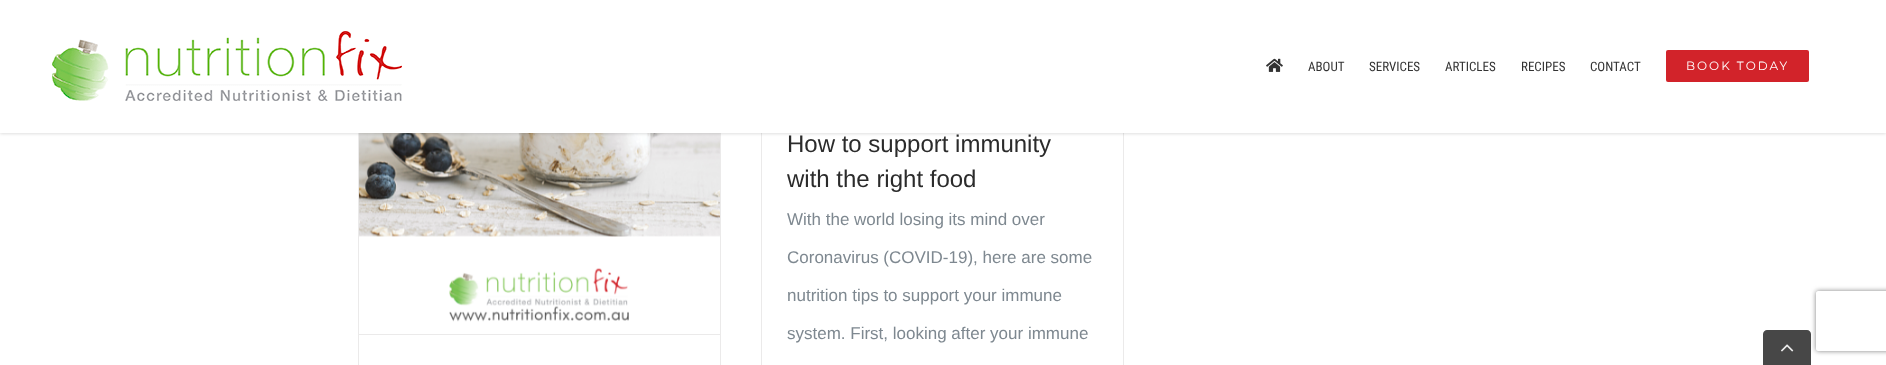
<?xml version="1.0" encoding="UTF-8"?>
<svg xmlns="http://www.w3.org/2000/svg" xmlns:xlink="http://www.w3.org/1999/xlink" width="1886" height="365">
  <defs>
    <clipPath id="clip1"><path d="M 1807 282 h 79 v 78 h -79 z m 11 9 h 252 c 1 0 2 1 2 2 v 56 c 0 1 -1 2 -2 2 h -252 c -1 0 -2 -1 -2 -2 v -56 c 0 -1 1 -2 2 -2 z" clip-rule="evenodd" /></clipPath>
  </defs>
  <rect width="100%" height="100%" fill="#ffffff" />
  <rect x="720" y="133" width="1" height="232" fill="#ebeaea" />
  <rect x="358" y="133" width="1" height="232" fill="#ebeaea" />
  <image x="359" y="133" width="361" height="189" xlink:href="image3.png" />
  <rect x="1123" y="133" width="1" height="232" fill="#ebeaea" />
  <rect x="761" y="133" width="1" height="232" fill="#ebeaea" />
  <rect y="1" width="1886" height="133" fill="#000000" fill-opacity="0.12" filter="blur(1.5px)" />
  <rect width="1886" height="133" fill="#ffffff" />
  <image x="52" y="31" width="350" height="70" xlink:href="image1.png" />
  <image x="1266" y="58" width="17" height="14" xlink:href="image2.png" />
  <rect x="1666" y="50" width="143" height="32" rx="2" fill="#d2232a" />
  <rect x="359" y="334" width="361" height="1" fill="#ebeaea" />
  <g clip-path="url(#clip1)">
    <rect x="1816" y="291" width="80" height="60" rx="2" fill="#808080" filter="blur(2.5px)" />
  </g>
  <path d="M 1767 330 h 40 c 2 0 4 2 4 4 v 31 h -48 v -31 c 0 -2 2 -4 4 -4 z" fill="#474747" />
  <image x="1781" y="344" width="13" height="8" xlink:href="image4.png" />
  <text x="1308" y="71" style="font-family: Roboto Condensed; font-size: 13px; fill: #333333">ABOUT</text>
  <text x="1369" y="71" style="font-family: Roboto Condensed; font-size: 13px; fill: #333333">SERVICES</text>
  <text x="1445" y="71" style="font-family: Roboto Condensed; font-size: 13px; fill: #333333">ARTICLES</text>
  <text x="1521" y="71" style="font-family: Roboto Condensed; font-size: 13px; fill: #333333">RECIPES</text>
  <text x="1590" y="71" style="font-family: Roboto Condensed; font-size: 13px; fill: #333333">CONTACT</text>
  <text x="1686" y="70" style="font-family: Montserrat; font-size: 12px; font-weight: 100; letter-spacing: 2px; fill: #ffffff">BOOK TODAY</text>
  <text x="787" y="152" style="font-family: Liberation Sans; font-size: 24px; fill: #2b2b2b">How to support immunity</text>
  <text x="787" y="187" style="font-family: Liberation Sans; font-size: 24px; fill: #2b2b2b">with the right food</text>
  <text x="787" y="225" style="font-family: Liberation Sans; font-size: 17px; fill: #7e8890">With the world losing its mind over</text>
  <text x="787" y="263" style="font-family: Liberation Sans; font-size: 17px; fill: #7e8890">Coronavirus (COVID-19), here are some</text>
  <text x="787" y="301" style="font-family: Liberation Sans; font-size: 17px; fill: #7e8890">nutrition tips to support your immune</text>
  <text x="787" y="339" style="font-family: Liberation Sans; font-size: 17px; fill: #7e8890">system. First, looking after your immune</text>
</svg>
